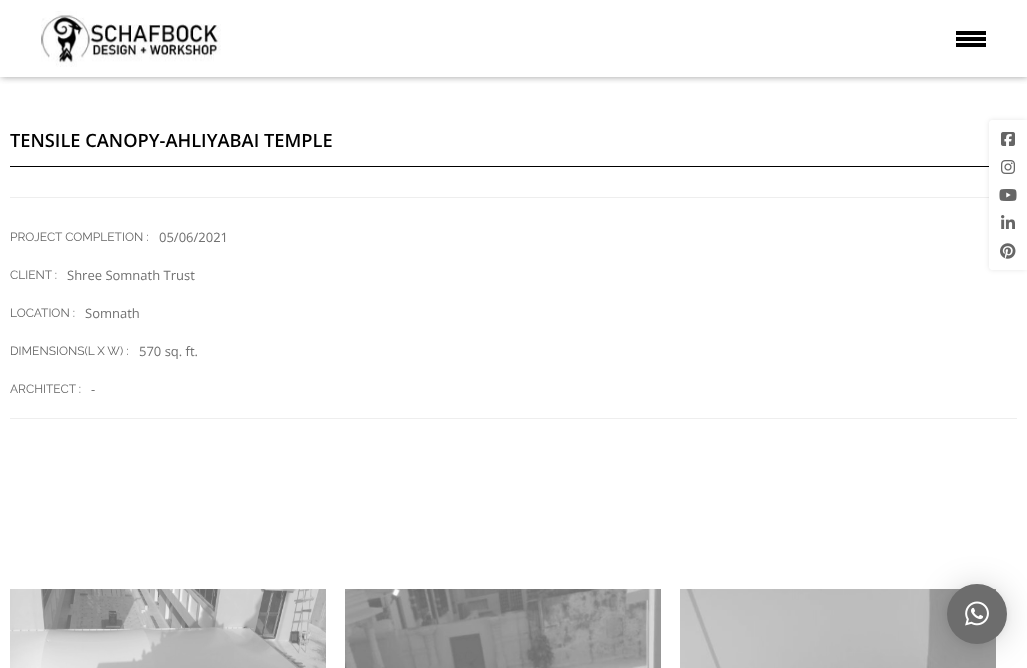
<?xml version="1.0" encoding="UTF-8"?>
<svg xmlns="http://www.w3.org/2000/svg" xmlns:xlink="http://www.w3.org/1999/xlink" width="1027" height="668">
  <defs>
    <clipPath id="clip1"><rect x="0" y="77" width="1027" height="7" /></clipPath>
  </defs>
  <rect width="100%" height="100%" fill="#ffffff" />
  <g clip-path="url(#clip1)">
    <rect x="1" width="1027" height="77" fill="#9c9c9c" filter="blur(3.5px)" />
  </g>
  <image x="41" y="11" width="180" height="56" xlink:href="image1.png" />
  <rect x="956" y="31" width="30" height="4" fill="#000000" />
  <rect x="956" y="37" width="30" height="4" fill="#000000" />
  <rect x="956" y="43" width="30" height="4" fill="#000000" />
  <rect x="10" y="166" width="979" height="1" fill="#000000" />
  <rect x="10" y="197" width="979" height="1" fill="#eeeeee" />
  <rect x="989" y="120" width="38" height="150" rx="3" fill="#000000" fill-opacity="0.1" filter="blur(2.5px)" />
  <path d="M 992 120 h 35 v 150 h -35 c -1.5 0 -3 -1.5 -3 -3 v -144 c 0 -1.5 1.5 -3 3 -3 z" fill="#ffffff" />
  <image x="1001" y="132" width="14" height="14" xlink:href="image2.png" />
  <image x="1001" y="160" width="14" height="14" xlink:href="image3.png" />
  <image x="999" y="189" width="18" height="12" xlink:href="image4.png" />
  <image x="1001" y="215" width="14" height="14" xlink:href="image5.png" />
  <image x="1000" y="243" width="16" height="16" xlink:href="image6.png" />
  <rect x="10" y="418" width="1007" height="1" fill="#eeeeee" />
  <image x="10" y="589" width="316" height="79" xlink:href="image7.png" />
  <image x="345" y="589" width="316" height="79" xlink:href="image8.png" />
  <image x="680" y="589" width="316" height="79" xlink:href="image9.png" />
  <rect x="947" y="586" width="60" height="60" rx="30" fill="#000000" fill-opacity="0.16" filter="blur(16px)" />
  <rect x="947" y="585" width="60" height="60" rx="30" fill="#000000" fill-opacity="0.06" filter="blur(3px)" />
  <circle cx="977" cy="614" r="30" fill="#6d6d6d" />
  <image x="965" y="601" width="24" height="25" xlink:href="image10.png" />
  <text x="10" y="147" style="font-family: Open Sans; font-size: 18.25px; font-weight: 600; fill: #000000">TENSILE CANOPY-AHLIYABAI TEMPLE</text>
  <text x="10" y="241" style="font-family: Raleway; font-size: 12px; font-weight: 100; fill: #666666">PROJECT COMPLETION :</text>
  <text x="159" y="242" style="font-family: Open Sans; font-size: 13px; fill: #717171">05/06/2021</text>
  <text x="10" y="279" style="font-family: Raleway; font-size: 12px; font-weight: 100; fill: #666666">CLIENT :</text>
  <text x="67" y="280" style="font-family: Open Sans; font-size: 13px; fill: #717171">Shree Somnath Trust</text>
  <text x="10" y="317" style="font-family: Raleway; font-size: 12px; font-weight: 100; fill: #666666">LOCATION :</text>
  <text x="85" y="318" style="font-family: Open Sans; font-size: 13px; fill: #717171">Somnath</text>
  <text x="10" y="355" style="font-family: Raleway; font-size: 12px; font-weight: 100; fill: #666666">DIMENSIONS(L X W) :</text>
  <text x="139" y="356" style="font-family: Open Sans; font-size: 13px; fill: #717171">570 sq. ft.</text>
  <text x="10" y="393" style="font-family: Raleway; font-size: 12px; font-weight: 100; fill: #666666">ARCHITECT :</text>
  <text x="91" y="394" style="font-family: Open Sans; font-size: 13px; fill: #717171">-</text>
</svg>
